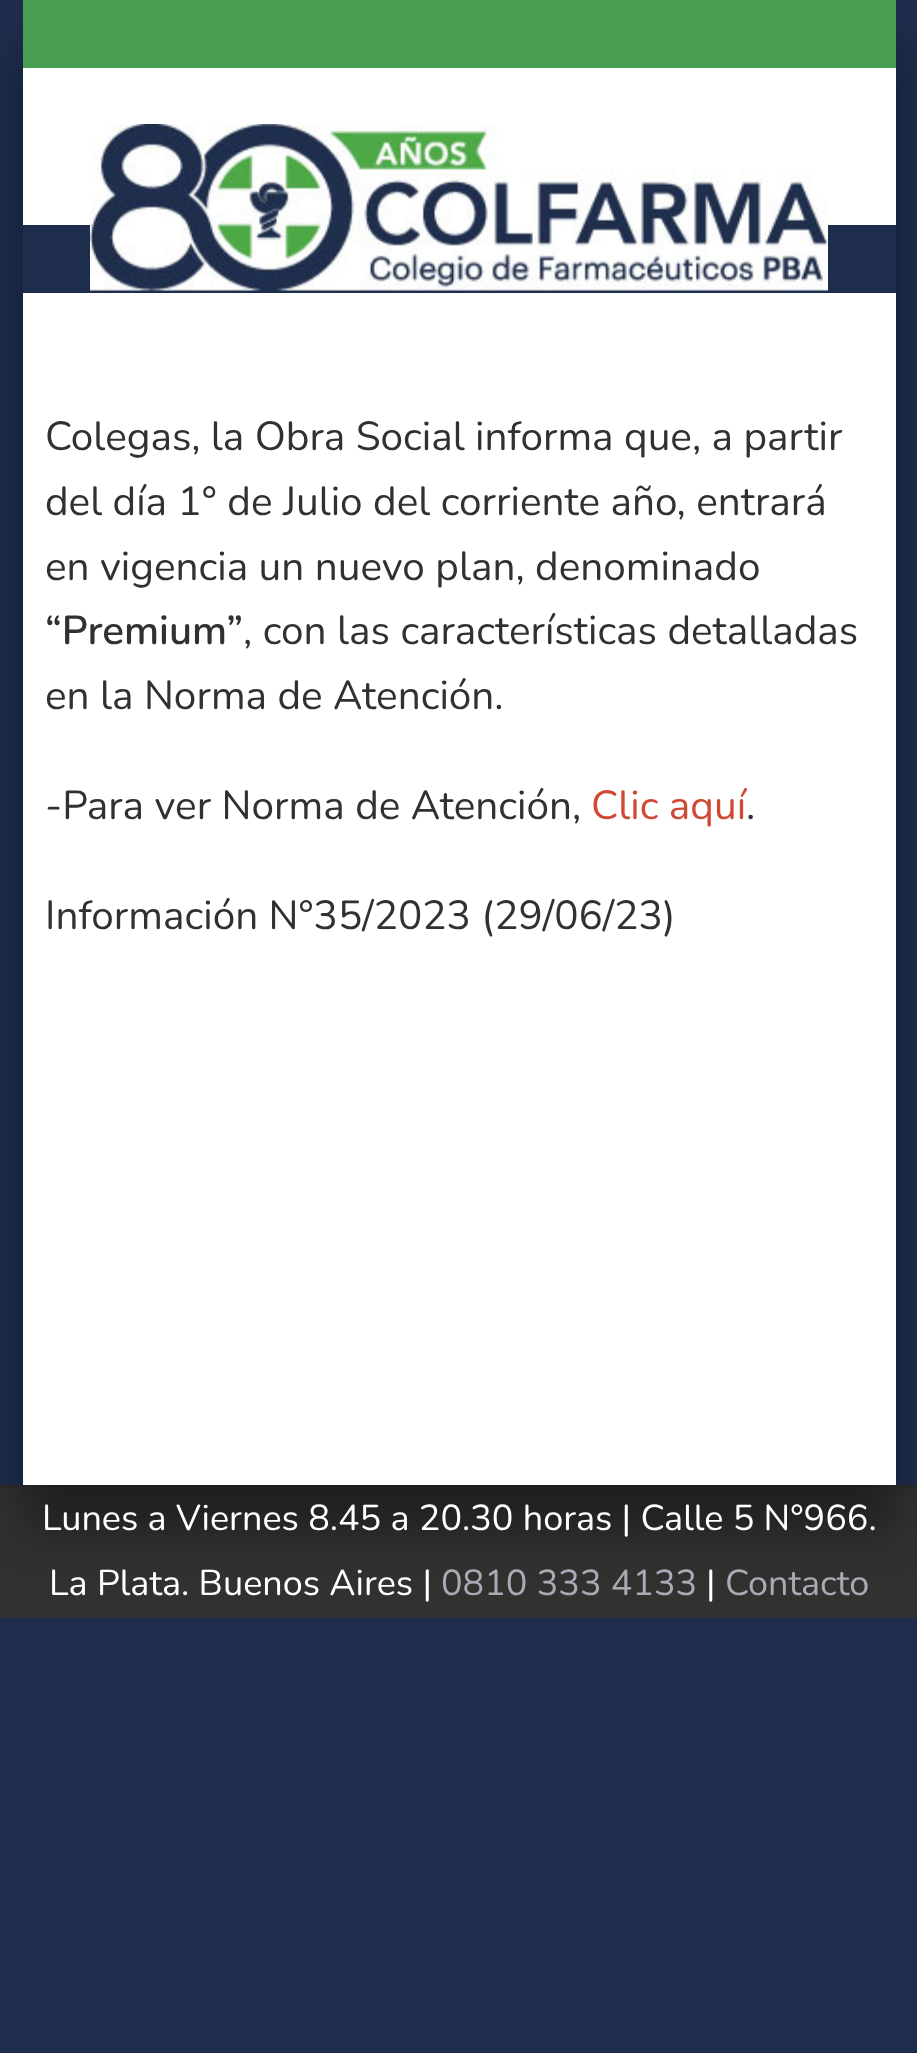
<?xml version="1.0" encoding="UTF-8"?>
<svg xmlns="http://www.w3.org/2000/svg" xmlns:xlink="http://www.w3.org/1999/xlink" width="917" height="2053">
  <rect width="100%" height="100%" fill="#1e2d4c" />
  <rect y="1487" width="917" height="131" fill="#313130" />
  <rect y="1485" width="917" height="2" fill="#2b2b2b" />
  <rect x="23" y="45" width="873" height="1485" fill="#000000" fill-opacity="0.35" filter="blur(22.5px)" />
  <rect x="23" y="225" width="873" height="68" fill="#1e2d4c" />
  <rect x="23" width="873" height="68" fill="#4a9e54" />
  <rect x="23" y="68" width="873" height="157" fill="#ffffff" />
  <image x="90" y="124" width="738" height="167" xlink:href="image1.png" />
  <rect x="23" y="293" width="873" height="1192" fill="#ffffff" />
  <text x="45" y="450" style="font-family: Nunito; font-size: 40.5px; fill: #313130">Colegas, la Obra Social informa que, a partir</text>
  <text x="45" y="515" style="font-family: Nunito; font-size: 40.5px; fill: #313130">del día 1° de Julio del corriente año, entrará</text>
  <text x="45" y="580" style="font-family: Nunito; font-size: 40.5px; fill: #313130">en vigencia un nuevo plan, denominado</text>
  <text x="45" y="644" style="font-family: Nunito; font-size: 40.5px; font-weight: 600; fill: #313130">“Premium”</text>
  <text x="243" y="644" style="font-family: Nunito; font-size: 40.5px; fill: #313130">, con las características detalladas</text>
  <text x="45" y="709" style="font-family: Nunito; font-size: 40.5px; fill: #313130">en la Norma de Atención.</text>
  <text x="45" y="819" style="font-family: Nunito; font-size: 40.5px; fill: #313130">-Para ver Norma de Atención,</text>
  <text x="591" y="819" style="font-family: Nunito; font-size: 40.5px; fill: #d04934">Clic aquí</text>
  <text x="746" y="819" style="font-family: Nunito; font-size: 40.5px; fill: #313130">.</text>
  <text x="45" y="929" style="font-family: Nunito; font-size: 40.5px; fill: #313130">Información N°35/2023 (29/06/23)</text>
  <text x="42" y="1530" style="font-family: Nunito; font-size: 36px; fill: #ffffff">Lunes a Viernes 8.45 a 20.30 horas | Calle 5 N°966.</text>
  <text x="49" y="1595" style="font-family: Nunito; font-size: 36px; fill: #ffffff">La Plata. Buenos Aires |</text>
  <text x="441" y="1595" style="font-family: Nunito; font-size: 36px; fill: #ada8b6">0810 333 4133</text>
  <text x="706" y="1595" style="font-family: Nunito; font-size: 36px; fill: #ffffff">|</text>
  <text x="725" y="1595" style="font-family: Nunito; font-size: 36px; fill: #ada8b6">Contacto</text>
</svg>
